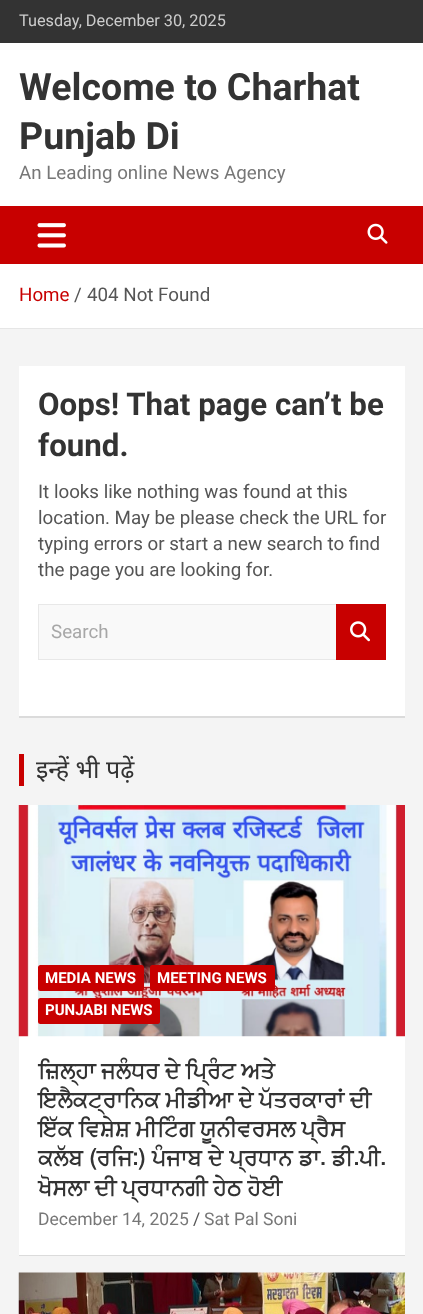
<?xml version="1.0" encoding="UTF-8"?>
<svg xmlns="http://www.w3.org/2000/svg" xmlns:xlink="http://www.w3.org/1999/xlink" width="423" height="1314">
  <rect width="100%" height="100%" fill="#f4f4f4" />
  <rect width="423" height="43" fill="#333333" />
  <rect y="43" width="423" height="163" fill="#ffffff" />
  <rect y="206" width="423" height="58" fill="#c80000" />
  <image x="37" y="223" width="29" height="25" xlink:href="image1.png" />
  <image x="367" y="223" width="21" height="21" xlink:href="image2.png" />
  <rect y="264" width="423" height="64" fill="#ffffff" />
  <rect y="328" width="423" height="1" fill="#e6e6e6" />
  <rect x="19" y="368" width="386" height="350" fill="#000000" fill-opacity="0.1" filter="blur(0.5px)" />
  <rect x="19" y="366" width="386" height="350" fill="#ffffff" />
  <rect x="39" y="605" width="297" height="54" fill="#f9f9f9" />
  <path d="M 38 604 h 298 v 1 h -297 z" fill="#e8e8e8" />
  <path d="M 336 660 h -298 l 1 -1 h 297 z" fill="#e8e8e8" />
  <path d="M 38 660 v -56 l 1 1 v 54 z" fill="#000000" fill-opacity="0.09" />
  <rect x="336" y="604" width="50" height="56" fill="#c80000" />
  <image x="350" y="621" width="20" height="21" xlink:href="image3.png" />
  <rect x="19" y="754" width="5" height="32" fill="#c80000" />
  <rect x="19" y="806" width="386" height="450" fill="#000000" fill-opacity="0.1" filter="blur(0.5px)" />
  <rect x="19" y="1036" width="386" height="219" fill="#ffffff" />
  <image x="18" y="805" width="387" height="232" xlink:href="image4.png" />
  <rect x="38" y="965" width="106" height="26" rx="2.5" fill="#c80000" />
  <rect x="150" y="965" width="125" height="26" rx="2.5" fill="#c80000" />
  <rect x="38" y="998" width="122" height="26" rx="2.5" fill="#c80000" />
  <image x="18" y="1272" width="387" height="42" xlink:href="image5.png" />
  <text x="19" y="26" style="font-family: Roboto; font-size: 16.25px; fill: #cccccc">Tuesday, December 30, 2025</text>
  <text x="19" y="100" style="font-family: Roboto; font-size: 37.5px; font-weight: bold; fill: #333333">Welcome to Charhat</text>
  <text x="19" y="149" style="font-family: Roboto; font-size: 37.5px; font-weight: bold; fill: #333333">Punjab Di</text>
  <text x="19" y="179" style="font-family: Roboto; font-size: 18.75px; fill: #777777">An Leading online News Agency</text>
  <text x="19" y="301" style="font-family: Roboto; font-size: 18.75px; fill: #c80000">Home</text>
  <text x="74" y="301" style="font-family: Roboto; font-size: 18.75px; fill: #555555">/</text>
  <text x="87" y="301" style="font-family: Roboto; font-size: 18.75px; fill: #555555">404 Not Found</text>
  <text x="38" y="415" style="font-family: Roboto; font-size: 31.25px; font-weight: bold; fill: #333333">Oops! That page can’t be</text>
  <text x="38" y="456" style="font-family: Roboto; font-size: 31.25px; font-weight: bold; fill: #333333">found.</text>
  <text x="38" y="498" style="font-family: Roboto; font-size: 18.75px; fill: #555555">It looks like nothing was found at this</text>
  <text x="38" y="524" style="font-family: Roboto; font-size: 18.75px; fill: #555555">location. May be please check the URL for</text>
  <text x="38" y="550" style="font-family: Roboto; font-size: 18.75px; fill: #555555">typing errors or start a new search to find</text>
  <text x="38" y="576" style="font-family: Roboto; font-size: 18.75px; fill: #555555">the page you are looking for.</text>
  <text x="51" y="638" style="font-family: Roboto; font-size: 18.75px; fill: #a7a7a7">Search</text>
  <text x="36" y="778" style="font-family: Noto Sans; font-size: 25px; fill: #333333">इन्हें भी पढ़ें</text>
  <text x="45" y="983" style="font-family: Roboto; font-size: 15px; font-weight: bold; fill: #ffffff">MEDIA NEWS</text>
  <text x="157" y="983" style="font-family: Roboto; font-size: 15px; font-weight: bold; fill: #ffffff">MEETING NEWS</text>
  <text x="45" y="1015" style="font-family: Roboto; font-size: 15px; font-weight: bold; fill: #ffffff">PUNJABI NEWS</text>
  <text x="38" y="1078" style="font-family: FreeSans; font-size: 22.5px; font-weight: bold; fill: #333333">ਜ਼ਿਲ੍ਹਾ ਜਲੰਧਰ ਦੇ ਪ੍ਰਿੰਟ ਅਤੇ</text>
  <text x="38" y="1107" style="font-family: FreeSans; font-size: 22.5px; font-weight: bold; fill: #333333">ਇਲੈਕਟ੍ਰਾਨਿਕ ਮੀਡੀਆ ਦੇ ਪੱਤਰਕਾਰਾਂ ਦੀ</text>
  <text x="38" y="1136" style="font-family: FreeSans; font-size: 22.5px; font-weight: bold; fill: #333333">ਇੱਕ ਵਿਸ਼ੇਸ਼ ਮੀਟਿੰਗ ਯੂਨੀਵਰਸਲ ਪ੍ਰੈਸ</text>
  <text x="38" y="1165" word-spacing="0.75" style="font-family: FreeSans; font-size: 22.5px; font-weight: bold; fill: #333333">ਕਲੱਬ (ਰਜਿ:) ਪੰਜਾਬ ਦੇ ਪ੍ਰਧਾਨ ਡਾ. ਡੀ.ਪੀ.</text>
  <text x="38" y="1195" style="font-family: FreeSans; font-size: 22.5px; font-weight: bold; fill: #333333">ਖੋਸਲਾ ਦੀ ਪ੍ਰਧਾਨਗੀ ਹੇਠ ਹੋਈ</text>
  <text x="38" y="1225" style="font-family: Roboto; font-size: 17.5px; fill: #777777">December 14, 2025</text>
  <text x="193" y="1225" style="font-family: Roboto; font-size: 17.5px; fill: #555555">/</text>
  <text x="204" y="1225" style="font-family: Roboto; font-size: 17.5px; fill: #777777">Sat Pal Soni</text>
</svg>
